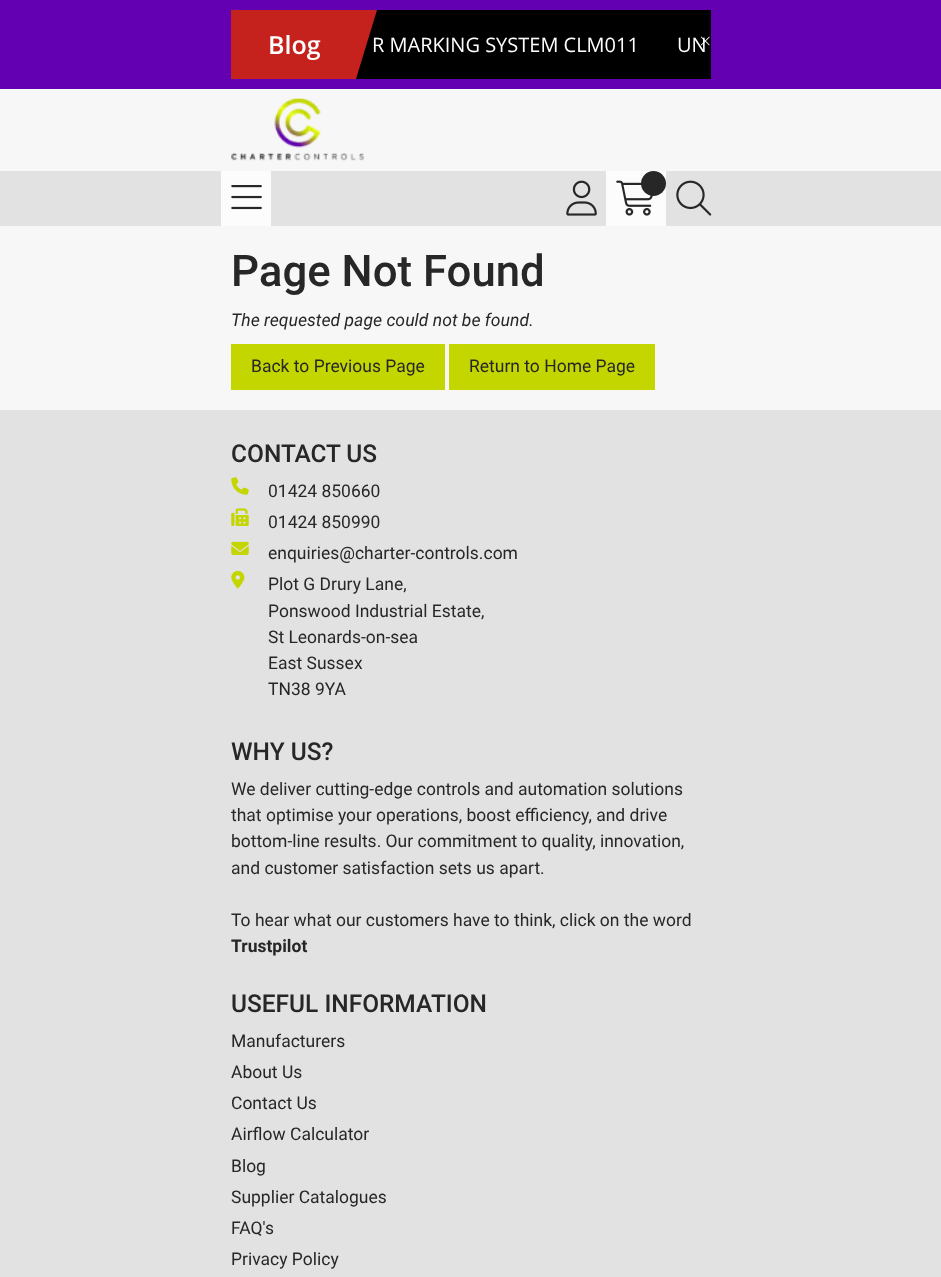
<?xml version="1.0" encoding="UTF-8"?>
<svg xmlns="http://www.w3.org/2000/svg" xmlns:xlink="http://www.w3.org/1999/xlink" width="941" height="1277">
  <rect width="100%" height="100%" fill="#f7f7f7" />
  <rect width="941" height="89" fill="#6200b2" />
  <rect x="356" y="10" width="355" height="69" fill="#000000" />
  <image x="231" y="98" width="133" height="63" xlink:href="image2.png" />
  <rect y="171" width="941" height="55" fill="#e2e2e2" />
  <rect x="221" y="171" width="50" height="55" fill="#fcfcfc" />
  <image x="231" y="185" width="31" height="25" xlink:href="image3.png" />
  <image x="566" y="180" width="31" height="36" xlink:href="image4.png" />
  <rect x="606" y="171" width="60" height="55" fill="#fcfcfc" />
  <image x="616" y="180" width="37" height="36" xlink:href="image5.png" />
  <circle cx="653.5" cy="183.5" r="12.5" fill="#272727" />
  <image x="676" y="180" width="36" height="36" xlink:href="image6.png" />
  <rect x="231" y="344" width="214" height="46" fill="#c4d600" />
  <rect x="449" y="344" width="206" height="46" fill="#c4d600" />
  <rect y="410" width="941" height="867" fill="#e2e2e2" />
  <image x="231" y="477" width="18" height="18" xlink:href="image7.png" />
  <image x="231" y="508" width="18" height="18" xlink:href="image8.png" />
  <image x="231" y="541" width="18" height="14" xlink:href="image9.png" />
  <image x="231" y="570" width="14" height="19" xlink:href="image10.png" />
  <text x="372" y="52" style="font-family: Open Sans; font-size: 20px; fill: #ffffff">R MARKING SYSTEM CLM011</text>
  <path d="M 231 10 v 69 h 125 l 21 -69 z" fill="#c5221e" />
  <text x="268" y="54" style="font-family: Open Sans; font-size: 25px; font-weight: 600; fill: #ffffff">Blog</text>
  <text x="677" y="52" style="font-family: Open Sans; font-size: 20px; fill: #ffffff">UN</text>
  <image x="700" y="36" width="10" height="10" xlink:href="image1.png" />
  <text x="231" y="286" style="font-family: Roboto; font-size: 43.75px; font-weight: 500; fill: #272727">Page Not Found</text>
  <text x="231" y="326" style="font-family: Roboto; font-size: 17.5px; font-style: italic; fill: #272727">The requested page could not be found.</text>
  <text x="251" y="372" style="font-family: Roboto; font-size: 17.5px; fill: #272727">Back to Previous Page</text>
  <text x="469" y="372" style="font-family: Roboto; font-size: 17.5px; fill: #272727">Return to Home Page</text>
  <text x="231" y="462" style="font-family: Roboto; font-size: 24.5px; font-weight: 500; fill: #272727">CONTACT US</text>
  <text x="268" y="497" style="font-family: Roboto; font-size: 17.5px; fill: #272727">01424 850660</text>
  <text x="268" y="528" style="font-family: Roboto; font-size: 17.5px; fill: #272727">01424 850990</text>
  <text x="268" y="559" style="font-family: Roboto; font-size: 17.5px; fill: #272727">enquiries@charter-controls.com</text>
  <text x="268" y="590" style="font-family: Roboto; font-size: 17.5px; fill: #272727">Plot G Drury Lane,</text>
  <text x="268" y="617" style="font-family: Roboto; font-size: 17.5px; fill: #272727">Ponswood Industrial Estate,</text>
  <text x="268" y="643" style="font-family: Roboto; font-size: 17.5px; fill: #272727">St Leonards-on-sea</text>
  <text x="268" y="669" style="font-family: Roboto; font-size: 17.5px; fill: #272727">East Sussex</text>
  <text x="268" y="695" style="font-family: Roboto; font-size: 17.5px; fill: #272727">TN38 9YA</text>
  <text x="231" y="760" style="font-family: Roboto; font-size: 24.5px; font-weight: 500; fill: #272727">WHY US?</text>
  <text x="231" y="795" style="font-family: Roboto; font-size: 17.5px; fill: #272727">We deliver cutting-edge controls and automation solutions</text>
  <text x="231" y="821" style="font-family: Roboto; font-size: 17.5px; fill: #272727">that optimise your operations, boost efficiency, and drive</text>
  <text x="231" y="847" style="font-family: Roboto; font-size: 17.5px; fill: #272727">bottom-line results. Our commitment to quality, innovation,</text>
  <text x="231" y="874" style="font-family: Roboto; font-size: 17.5px; fill: #272727">and customer satisfaction sets us apart.</text>
  <text x="231" y="926" style="font-family: Roboto; font-size: 17.5px; fill: #272727">To hear what our customers have to think, click on the word</text>
  <text x="231" y="952" style="font-family: Roboto; font-size: 17.5px; font-weight: bold; fill: #272727">Trustpilot</text>
  <text x="231" y="1012" style="font-family: Roboto; font-size: 24.5px; font-weight: 500; fill: #272727">USEFUL INFORMATION</text>
  <text x="231" y="1047" style="font-family: Roboto; font-size: 17.5px; fill: #272727">Manufacturers</text>
  <text x="231" y="1078" style="font-family: Roboto; font-size: 17.5px; fill: #272727">About Us</text>
  <text x="231" y="1109" style="font-family: Roboto; font-size: 17.5px; fill: #272727">Contact Us</text>
  <text x="231" y="1140" style="font-family: Roboto; font-size: 17.5px; fill: #272727">Airflow Calculator</text>
  <text x="231" y="1172" style="font-family: Roboto; font-size: 17.5px; fill: #272727">Blog</text>
  <text x="231" y="1203" style="font-family: Roboto; font-size: 17.5px; fill: #272727">Supplier Catalogues</text>
  <text x="231" y="1234" style="font-family: Roboto; font-size: 17.5px; fill: #272727">FAQ's</text>
  <text x="231" y="1265" style="font-family: Roboto; font-size: 17.5px; fill: #272727">Privacy Policy</text>
</svg>
